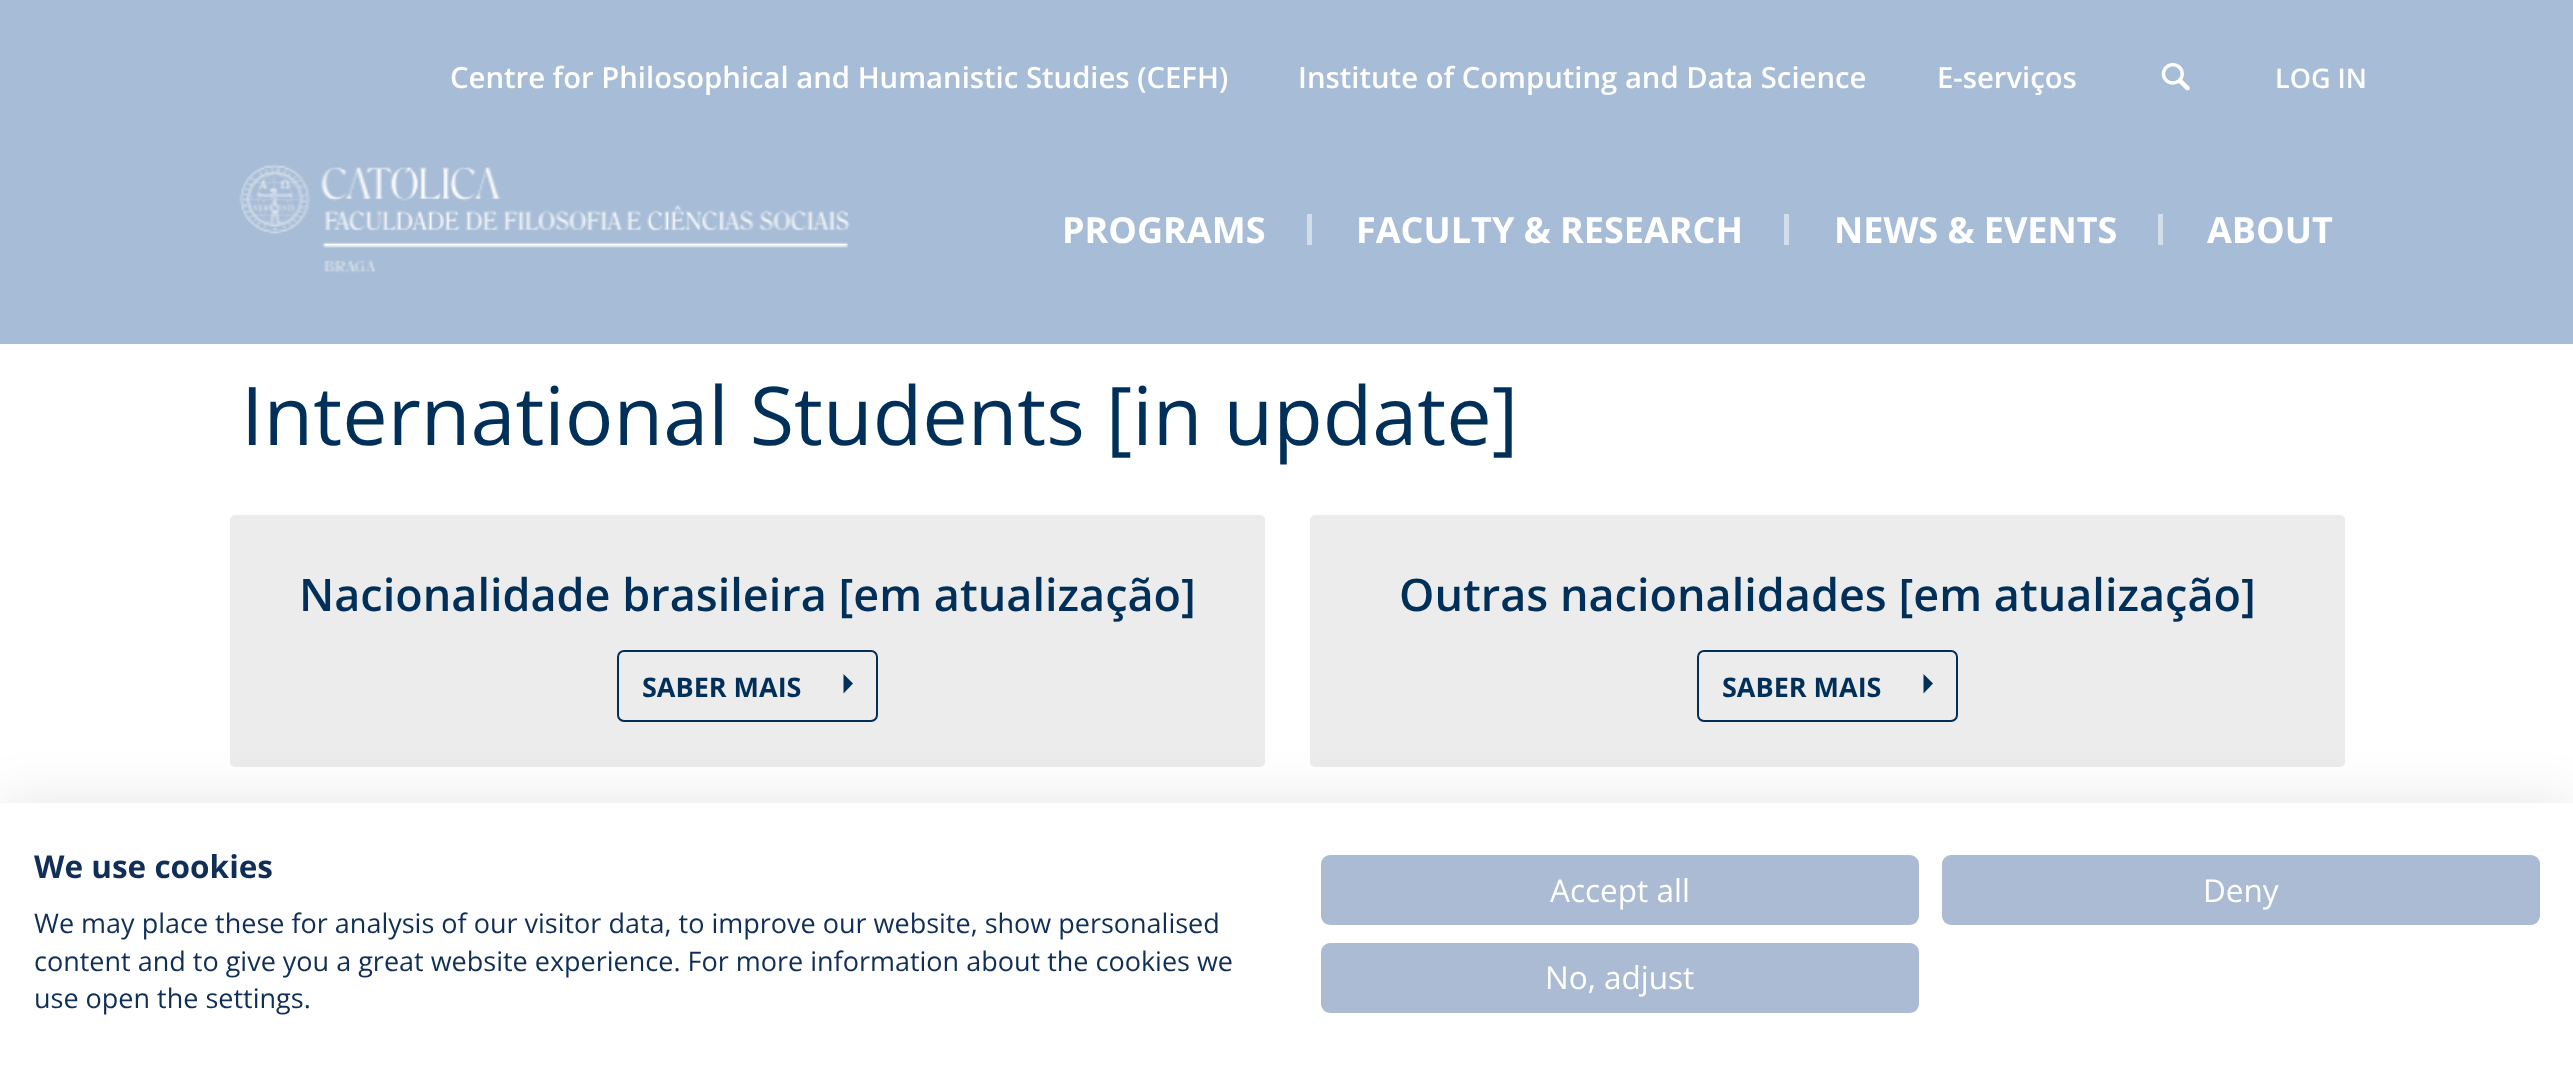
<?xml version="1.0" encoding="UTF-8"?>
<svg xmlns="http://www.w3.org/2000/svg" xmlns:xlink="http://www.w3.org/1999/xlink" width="2573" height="1080">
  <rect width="100%" height="100%" fill="#ffffff" />
  <rect width="2573" height="344" fill="#a7bcd6" />
  <image x="2161" y="63" width="29" height="28" xlink:href="image1.png" />
  <image x="239" y="164" width="611" height="109" xlink:href="image2.png" />
  <rect x="1307" y="214" width="5" height="31" fill="#d3deeb" />
  <rect x="1784" y="214" width="5" height="31" fill="#d3deeb" />
  <rect x="2158" y="214" width="5" height="31" fill="#d3deeb" />
  <rect x="230" y="515" width="1035" height="252" rx="5" fill="#ececec" />
  <rect x="618" y="651" width="259" height="70" rx="6" fill="none" stroke="#003059" stroke-width="2" />
  <path d="M 843.5 693.5 l 9.5 -10 l -9.5 -9.5 z" fill="#003059" />
  <rect x="1310" y="515" width="1035" height="252" rx="5" fill="#ececec" />
  <rect x="1698" y="651" width="259" height="70" rx="6" fill="none" stroke="#003059" stroke-width="2" />
  <path d="M 1923.5 693.5 l 9.5 -10 l -9.5 -9.5 z" fill="#003059" />
  <rect y="803" width="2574" height="277" fill="#000000" fill-opacity="0.1" filter="blur(27px)" />
  <rect y="803" width="2573" height="277" fill="#ffffff" />
  <rect x="1322" y="856" width="596" height="68" rx="8" fill="#abbbd4" stroke="#abbbd4" stroke-width="2" />
  <rect x="1943" y="856" width="596" height="68" rx="8" fill="#abbbd4" stroke="#abbbd4" stroke-width="2" />
  <rect x="1322" y="944" width="596" height="68" rx="8" fill="#abbbd4" stroke="#abbbd4" stroke-width="2" />
  <text x="450" y="88" style="font-family: Open Sans; font-size: 29.25px; font-weight: 600; fill: #ffffff">Centre for Philosophical and Humanistic Studies (CEFH)</text>
  <text x="1298" y="88" style="font-family: Open Sans; font-size: 29.25px; font-weight: 600; fill: #ffffff">Institute of Computing and Data Science</text>
  <text x="1937" y="88" style="font-family: Open Sans; font-size: 29.25px; font-weight: 600; fill: #ffffff">E-serviços</text>
  <text x="2275" y="88" style="font-family: Open Sans; font-size: 27px; font-weight: 600; fill: #ffffff">LOG IN</text>
  <text x="1062" y="243" style="font-family: Open Sans; font-size: 36px; font-weight: bold; fill: #ffffff">PROGRAMS</text>
  <text x="1356" y="243" style="font-family: Open Sans; font-size: 36px; font-weight: bold; fill: #ffffff">FACULTY &amp; RESEARCH</text>
  <text x="1834" y="243" style="font-family: Open Sans; font-size: 36px; font-weight: bold; fill: #ffffff">NEWS &amp; EVENTS</text>
  <text x="2207" y="243" style="font-family: Open Sans; font-size: 36px; font-weight: bold; fill: #ffffff">ABOUT</text>
  <text x="241" y="445" style="font-family: Open Sans; font-size: 81px; fill: #003059">International Students [in update]</text>
  <text x="299" y="611" style="font-family: Open Sans; font-size: 45px; font-weight: 600; fill: #003059">Nacionalidade brasileira [em atualização]</text>
  <text x="642" y="697" style="font-family: Open Sans; font-size: 27px; font-weight: bold; fill: #003059">SABER MAIS</text>
  <text x="1399" y="611" style="font-family: Open Sans; font-size: 45px; font-weight: 600; fill: #003059">Outras nacionalidades [em atualização]</text>
  <text x="1722" y="697" style="font-family: Open Sans; font-size: 27px; font-weight: bold; fill: #003059">SABER MAIS</text>
  <text x="34" y="878" style="font-family: Open Sans; font-size: 31.5px; font-weight: bold; fill: #102f56">We use cookies</text>
  <text x="34" y="933" style="font-family: Open Sans; font-size: 27px; fill: #102f56">We may place these for analysis of our visitor data, to improve our website, show personalised</text>
  <text x="34" y="971" style="font-family: Open Sans; font-size: 27px; fill: #102f56">content and to give you a great website experience. For more information about the cookies we</text>
  <text x="34" y="1008" style="font-family: Open Sans; font-size: 27px; fill: #102f56">use open the settings.</text>
  <text x="1550" y="902" style="font-family: Open Sans; font-size: 31.5px; fill: #ffffff">Accept all</text>
  <text x="2203" y="902" style="font-family: Open Sans; font-size: 31.5px; fill: #ffffff">Deny</text>
  <text x="1545" y="989" style="font-family: Open Sans; font-size: 31.5px; fill: #ffffff">No, adjust</text>
</svg>
